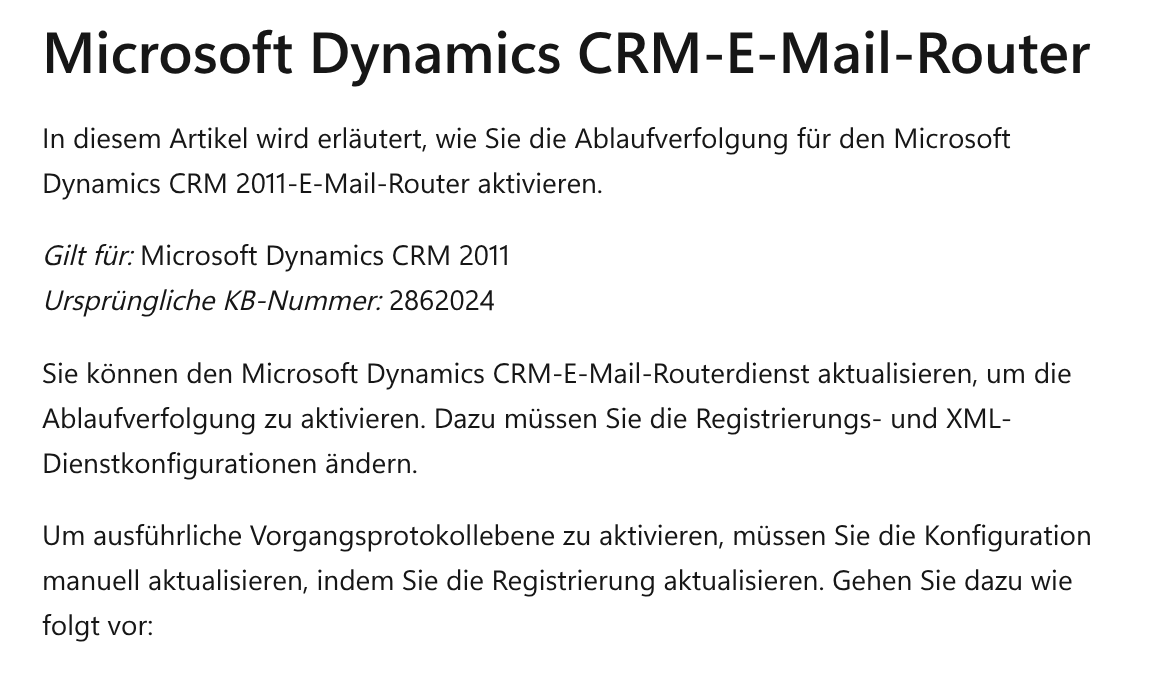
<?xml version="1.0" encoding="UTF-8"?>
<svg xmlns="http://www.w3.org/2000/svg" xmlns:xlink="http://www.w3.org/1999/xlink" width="1155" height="691">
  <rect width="100%" height="100%" fill="#ffffff" />
  <text x="42" y="73" style="font-family: Segoe UI; font-size: 57.7px; font-weight: 600; fill: #161616">Microsoft Dynamics CRM-E-Mail-Router</text>
  <text x="42" y="148" style="font-family: Segoe UI; font-size: 28px; fill: #161616">In diesem Artikel wird erläutert, wie Sie die Ablaufverfolgung für den Microsoft</text>
  <text x="42" y="193" style="font-family: Segoe UI; font-size: 28px; fill: #161616">Dynamics CRM 2011-E-Mail-Router aktivieren.</text>
  <text x="42" y="265" style="font-family: Segoe UI; font-size: 28px; font-style: italic; fill: #161616">Gilt für:</text>
  <text x="140" y="265" style="font-family: Segoe UI; font-size: 28px; fill: #161616">Microsoft Dynamics CRM 2011</text>
  <text x="42" y="310" style="font-family: Segoe UI; font-size: 28px; font-style: italic; fill: #161616">Ursprüngliche KB-Nummer:</text>
  <text x="389" y="310" style="font-family: Segoe UI; font-size: 28px; fill: #161616">2862024</text>
  <text x="42" y="383" style="font-family: Segoe UI; font-size: 28px; fill: #161616">Sie können den Microsoft Dynamics CRM-E-Mail-Routerdienst aktualisieren, um die</text>
  <text x="42" y="428" style="font-family: Segoe UI; font-size: 28px; fill: #161616">Ablaufverfolgung zu aktivieren. Dazu müssen Sie die Registrierungs- und XML-</text>
  <text x="42" y="473" style="font-family: Segoe UI; font-size: 28px; fill: #161616">Dienstkonfigurationen ändern.</text>
  <text x="42" y="545" style="font-family: Segoe UI; font-size: 28px; fill: #161616">Um ausführliche Vorgangsprotokollebene zu aktivieren, müssen Sie die Konfiguration</text>
  <text x="42" y="590" style="font-family: Segoe UI; font-size: 28px; fill: #161616">manuell aktualisieren, indem Sie die Registrierung aktualisieren. Gehen Sie dazu wie</text>
  <text x="42" y="635" style="font-family: Segoe UI; font-size: 28px; fill: #161616">folgt vor:</text>
</svg>
